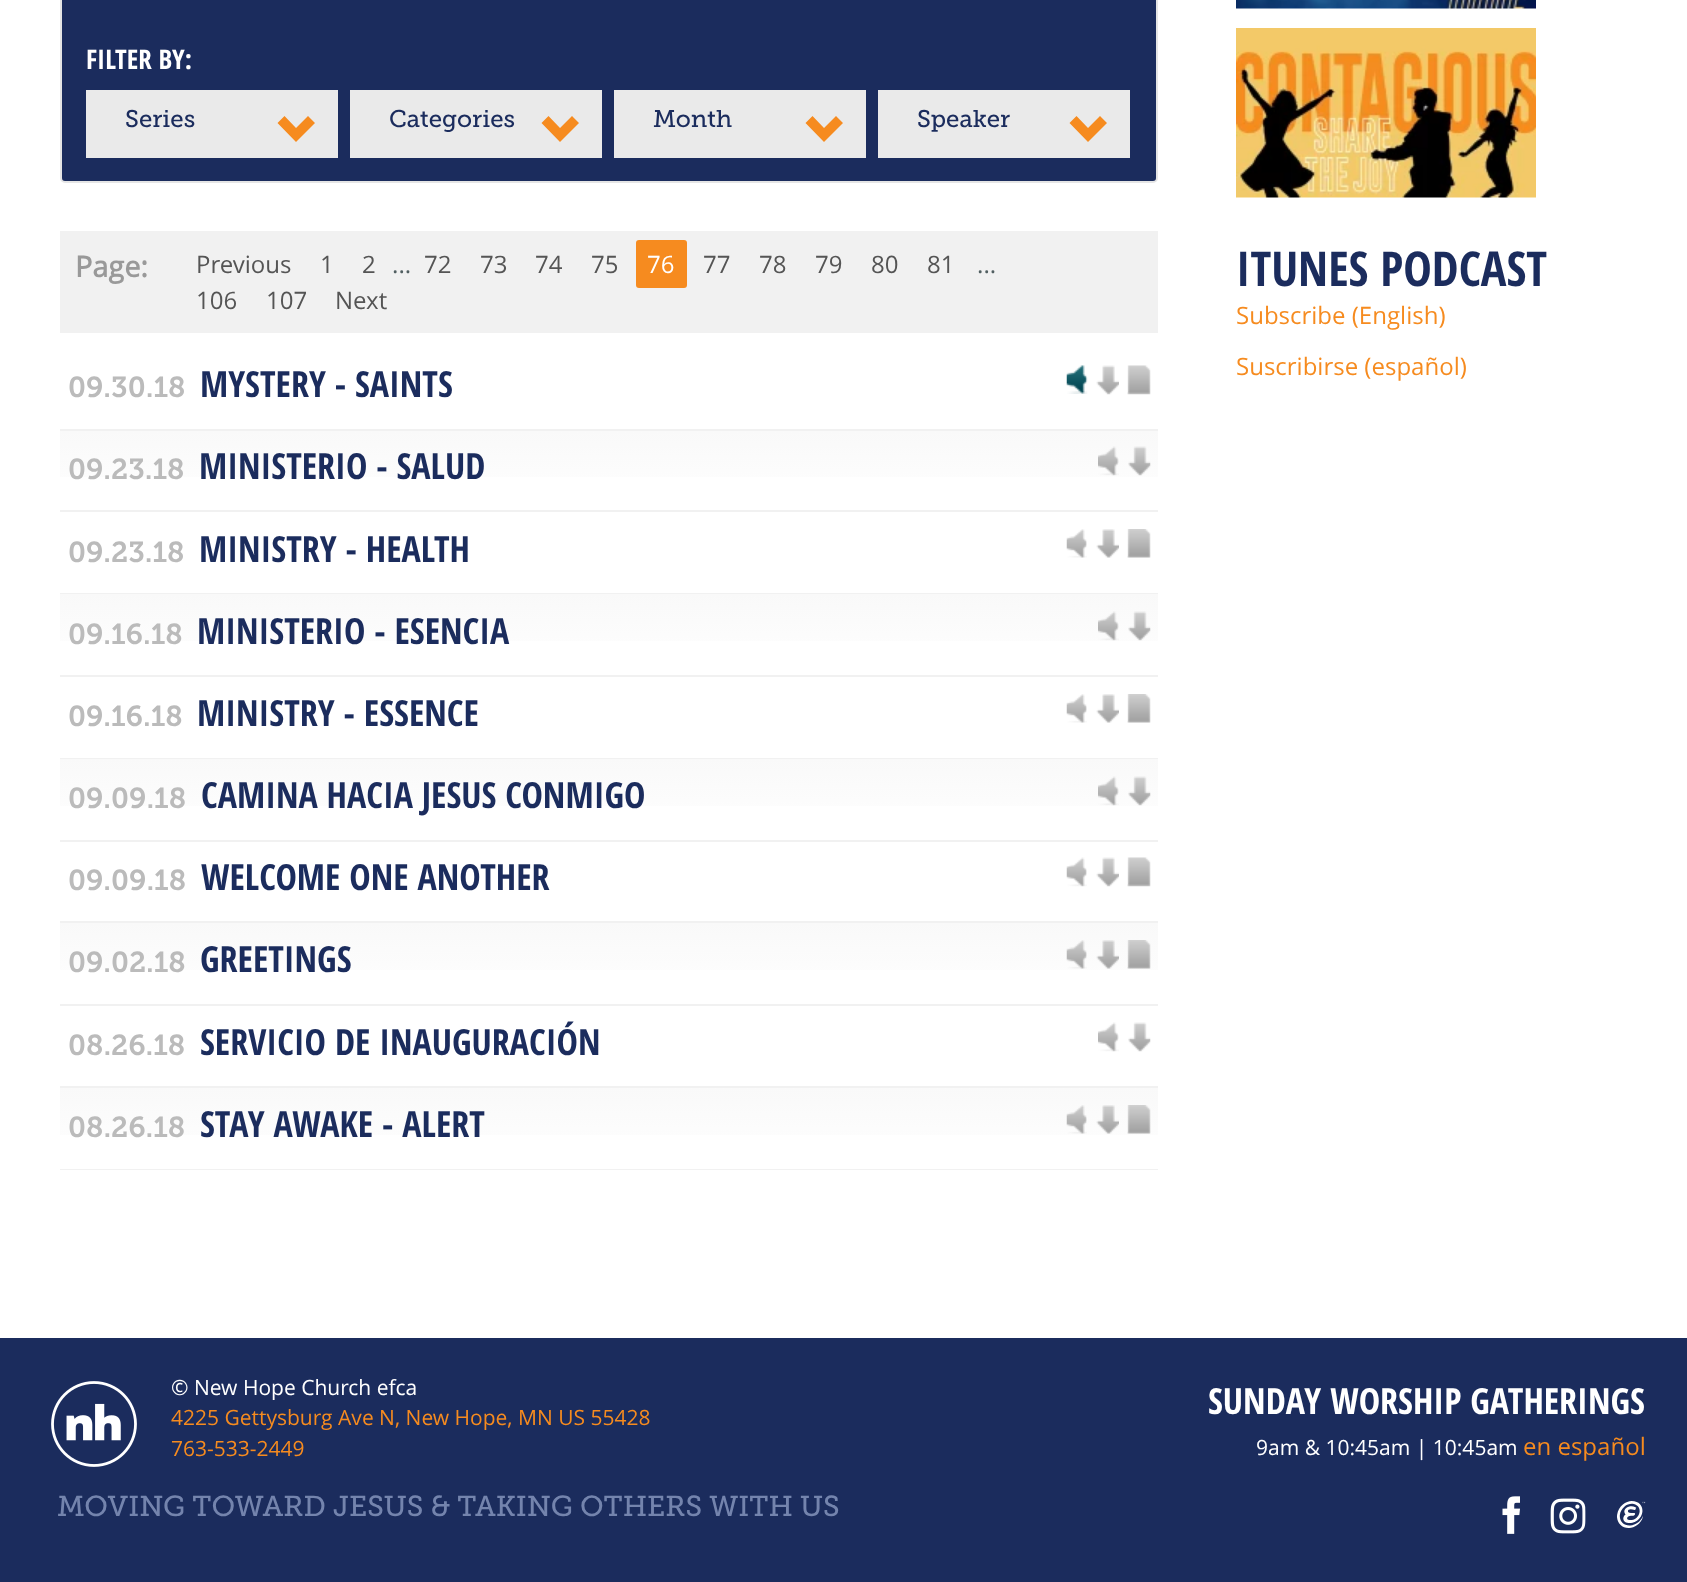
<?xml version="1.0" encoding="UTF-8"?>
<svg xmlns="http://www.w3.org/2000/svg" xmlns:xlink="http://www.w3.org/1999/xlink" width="1687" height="1582">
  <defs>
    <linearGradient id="g1" gradientUnits="userSpaceOnUse" x1="60" y1="431" x2="60" y2="510"><stop offset="0" stop-color="#f9f9f9" /><stop offset="1" stop-color="#ffffff" /></linearGradient>
    <linearGradient id="g2" gradientUnits="userSpaceOnUse" x1="60" y1="594" x2="60" y2="675"><stop offset="0" stop-color="#f9f9f9" /><stop offset="1" stop-color="#ffffff" /></linearGradient>
    <linearGradient id="g3" gradientUnits="userSpaceOnUse" x1="60" y1="759" x2="60" y2="840"><stop offset="0" stop-color="#f9f9f9" /><stop offset="1" stop-color="#ffffff" /></linearGradient>
    <linearGradient id="g4" gradientUnits="userSpaceOnUse" x1="60" y1="923" x2="60" y2="1004"><stop offset="0" stop-color="#f9f9f9" /><stop offset="1" stop-color="#ffffff" /></linearGradient>
    <linearGradient id="g5" gradientUnits="userSpaceOnUse" x1="60" y1="1088" x2="60" y2="1169"><stop offset="0" stop-color="#f9f9f9" /><stop offset="1" stop-color="#ffffff" /></linearGradient>
  </defs>
  <rect width="100%" height="100%" fill="#ffffff" />
  <rect x="61" y="-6" width="1096" height="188" rx="4" fill="#1b2c5d" stroke="#e5e5e5" stroke-width="2" />
  <rect x="86" y="90" width="252" height="68" fill="#eaeaea" />
  <path d="M 308 116 l -12 12 l -11.5 -12 l -7 7 l 18.5 19 l 19 -19 z" fill="#f68b1f" />
  <rect x="350" y="90" width="252" height="68" fill="#eaeaea" />
  <path d="M 572 116 l -12 12 l -11.5 -12 l -7 7 l 18.5 19 l 19 -19 z" fill="#f68b1f" />
  <rect x="614" y="90" width="252" height="68" fill="#eaeaea" />
  <path d="M 836 116 l -12 12 l -11.5 -12 l -7 7 l 18.5 19 l 19 -19 z" fill="#f68b1f" />
  <rect x="878" y="90" width="252" height="68" fill="#eaeaea" />
  <path d="M 1100 116 l -12 12 l -11.5 -12 l -7 7 l 18.5 19 l 19 -19 z" fill="#f68b1f" />
  <rect x="60" y="231" width="1098" height="102" fill="#f1f1f1" />
  <rect x="636" y="240" width="51" height="48" rx="3" fill="#f68b1f" />
  <rect x="60" y="429" width="1098" height="2" fill="#f1f1f1" />
  <image x="1066" y="365" width="22" height="29" xlink:href="image1.png" />
  <image x="1096" y="365" width="23" height="30" xlink:href="image2.png" />
  <image x="1127" y="365" width="24" height="30" xlink:href="image3.png" />
  <rect x="60" y="431" width="1098" height="46" fill="url(#g1)" />
  <rect x="60" y="510" width="1098" height="2" fill="#f1f1f1" />
  <image x="1098" y="446" width="21" height="30" xlink:href="image4.png" />
  <image x="1128" y="446" width="23" height="30" xlink:href="image5.png" />
  <rect x="60" y="593" width="1098" height="1" fill="#f1f1f1" />
  <image x="1066" y="529" width="21" height="29" xlink:href="image6.png" />
  <image x="1096" y="529" width="23" height="29" xlink:href="image7.png" />
  <image x="1127" y="529" width="24" height="29" xlink:href="image8.png" />
  <rect x="60" y="594" width="1098" height="47" fill="url(#g2)" />
  <rect x="60" y="675" width="1098" height="2" fill="#f1f1f1" />
  <image x="1098" y="611" width="21" height="30" xlink:href="image9.png" />
  <image x="1128" y="611" width="23" height="30" xlink:href="image10.png" />
  <rect x="60" y="758" width="1098" height="1" fill="#f1f1f1" />
  <image x="1066" y="694" width="21" height="29" xlink:href="image6.png" />
  <image x="1096" y="694" width="23" height="29" xlink:href="image7.png" />
  <image x="1127" y="694" width="24" height="29" xlink:href="image8.png" />
  <rect x="60" y="759" width="1098" height="47" fill="url(#g3)" />
  <rect x="60" y="840" width="1098" height="2" fill="#f1f1f1" />
  <image x="1098" y="776" width="21" height="30" xlink:href="image9.png" />
  <image x="1128" y="776" width="23" height="30" xlink:href="image10.png" />
  <rect x="60" y="921" width="1098" height="2" fill="#f1f1f1" />
  <image x="1066" y="857" width="21" height="30" xlink:href="image11.png" />
  <image x="1096" y="857" width="23" height="30" xlink:href="image2.png" />
  <image x="1127" y="857" width="24" height="30" xlink:href="image3.png" />
  <rect x="60" y="923" width="1098" height="47" fill="url(#g4)" />
  <rect x="60" y="1004" width="1098" height="2" fill="#f1f1f1" />
  <image x="1066" y="940" width="21" height="29" xlink:href="image12.png" />
  <image x="1096" y="940" width="23" height="29" xlink:href="image13.png" />
  <image x="1127" y="940" width="24" height="29" xlink:href="image14.png" />
  <rect x="60" y="1086" width="1098" height="2" fill="#f1f1f1" />
  <image x="1098" y="1022" width="21" height="30" xlink:href="image15.png" />
  <image x="1128" y="1022" width="23" height="30" xlink:href="image16.png" />
  <rect x="60" y="1088" width="1098" height="47" fill="url(#g5)" />
  <rect x="60" y="1169" width="1098" height="1" fill="#f1f1f1" />
  <image x="1066" y="1105" width="21" height="29" xlink:href="image12.png" />
  <image x="1096" y="1105" width="23" height="29" xlink:href="image13.png" />
  <image x="1127" y="1105" width="24" height="29" xlink:href="image14.png" />
  <image x="1236" y="0" width="300" height="9" xlink:href="image17.png" />
  <image x="1236" y="28" width="300" height="170" xlink:href="image18.png" />
  <rect y="1338" width="1687" height="244" fill="#1b2c5d" />
  <image x="51" y="1381" width="86" height="86" xlink:href="image19.png" />
  <image x="1502" y="1496" width="18" height="38" xlink:href="image20.png" />
  <image x="1550" y="1498" width="36" height="36" xlink:href="image21.png" />
  <image x="1617" y="1501" width="29" height="27" xlink:href="image22.png" />
  <text x="86" y="69" style="font-family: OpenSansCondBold; font-size: 27px; font-weight: bold; fill: #ffffff">FILTER BY:</text>
  <text x="125" y="127" style="font-family: Museo Slab; font-size: 24px; fill: #1b2c5d">Series</text>
  <text x="389" y="127" style="font-family: Museo Slab; font-size: 24px; fill: #1b2c5d">Categories</text>
  <text x="653" y="127" style="font-family: Museo Slab; font-size: 24px; fill: #1b2c5d">Month</text>
  <text x="917" y="127" style="font-family: Museo Slab; font-size: 24px; fill: #1b2c5d">Speaker</text>
  <text x="75" y="277" style="font-family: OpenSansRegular; font-size: 28.8px; font-weight: bold; fill: #999999">Page:</text>
  <text x="196" y="273" style="font-family: OpenSansRegular; font-size: 24px; fill: #555555">Previous</text>
  <text x="320" y="273" style="font-family: OpenSansRegular; font-size: 24px; fill: #555555">1</text>
  <text x="362" y="273" style="font-family: OpenSansRegular; font-size: 24px; fill: #555555">2</text>
  <text x="392" y="273" style="font-family: OpenSansRegular; font-size: 24px; fill: #515f61">...</text>
  <text x="424" y="273" style="font-family: OpenSansRegular; font-size: 24px; fill: #555555">72</text>
  <text x="480" y="273" style="font-family: OpenSansRegular; font-size: 24px; fill: #555555">73</text>
  <text x="535" y="273" style="font-family: OpenSansRegular; font-size: 24px; fill: #555555">74</text>
  <text x="591" y="273" style="font-family: OpenSansRegular; font-size: 24px; fill: #555555">75</text>
  <text x="647" y="273" style="font-family: OpenSansRegular; font-size: 24px; fill: #ffffff">76</text>
  <text x="703" y="273" style="font-family: OpenSansRegular; font-size: 24px; fill: #555555">77</text>
  <text x="759" y="273" style="font-family: OpenSansRegular; font-size: 24px; fill: #555555">78</text>
  <text x="815" y="273" style="font-family: OpenSansRegular; font-size: 24px; fill: #555555">79</text>
  <text x="871" y="273" style="font-family: OpenSansRegular; font-size: 24px; fill: #555555">80</text>
  <text x="927" y="273" style="font-family: OpenSansRegular; font-size: 24px; fill: #555555">81</text>
  <text x="977" y="273" style="font-family: OpenSansRegular; font-size: 24px; fill: #515f61">...</text>
  <text x="196" y="309" style="font-family: OpenSansRegular; font-size: 24px; fill: #555555">106</text>
  <text x="266" y="309" style="font-family: OpenSansRegular; font-size: 24px; fill: #555555">107</text>
  <text x="335" y="309" style="font-family: OpenSansRegular; font-size: 24px; fill: #555555">Next</text>
  <text x="68" y="397" style="font-family: Museo Slab; font-size: 28.8px; font-weight: 600; fill: #bbbbbb">09.30.18</text>
  <text x="200" y="397" style="font-family: OpenSansCondBold; font-size: 36px; font-weight: bold; fill: #1b2c5d">MYSTERY - SAINTS</text>
  <text x="68" y="479" style="font-family: Museo Slab; font-size: 28.8px; font-weight: 600; fill: #bbbbbb">09.23.18</text>
  <text x="199" y="479" style="font-family: OpenSansCondBold; font-size: 36px; font-weight: bold; fill: #1b2c5d">MINISTERIO - SALUD</text>
  <text x="68" y="562" style="font-family: Museo Slab; font-size: 28.8px; font-weight: 600; fill: #bbbbbb">09.23.18</text>
  <text x="199" y="562" style="font-family: OpenSansCondBold; font-size: 36px; font-weight: bold; fill: #1b2c5d">MINISTRY - HEALTH</text>
  <text x="68" y="644" style="font-family: Museo Slab; font-size: 28.8px; font-weight: 600; fill: #bbbbbb">09.16.18</text>
  <text x="197" y="644" style="font-family: OpenSansCondBold; font-size: 36px; font-weight: bold; fill: #1b2c5d">MINISTERIO - ESENCIA</text>
  <text x="68" y="726" style="font-family: Museo Slab; font-size: 28.8px; font-weight: 600; fill: #bbbbbb">09.16.18</text>
  <text x="197" y="726" style="font-family: OpenSansCondBold; font-size: 36px; font-weight: bold; fill: #1b2c5d">MINISTRY - ESSENCE</text>
  <text x="68" y="808" style="font-family: Museo Slab; font-size: 28.8px; font-weight: 600; fill: #bbbbbb">09.09.18</text>
  <text x="201" y="808" style="font-family: OpenSansCondBold; font-size: 36px; font-weight: bold; fill: #1b2c5d">CAMINA HACIA JESUS CONMIGO</text>
  <text x="68" y="890" style="font-family: Museo Slab; font-size: 28.8px; font-weight: 600; fill: #bbbbbb">09.09.18</text>
  <text x="201" y="890" style="font-family: OpenSansCondBold; font-size: 36px; font-weight: bold; fill: #1b2c5d">WELCOME ONE ANOTHER</text>
  <text x="68" y="972" style="font-family: Museo Slab; font-size: 28.8px; font-weight: 600; fill: #bbbbbb">09.02.18</text>
  <text x="200" y="972" style="font-family: OpenSansCondBold; font-size: 36px; font-weight: bold; fill: #1b2c5d">GREETINGS</text>
  <text x="68" y="1055" style="font-family: Museo Slab; font-size: 28.8px; font-weight: 600; fill: #bbbbbb">08.26.18</text>
  <text x="200" y="1055" style="font-family: OpenSansCondBold; font-size: 36px; font-weight: bold; fill: #1b2c5d">SERVICIO DE INAUGURACIÓN</text>
  <text x="68" y="1137" style="font-family: Museo Slab; font-size: 28.8px; font-weight: 600; fill: #bbbbbb">08.26.18</text>
  <text x="200" y="1137" style="font-family: OpenSansCondBold; font-size: 36px; font-weight: bold; fill: #1b2c5d">STAY AWAKE - ALERT</text>
  <text x="1236" y="286" style="font-family: OpenSansCondBold; font-size: 48px; font-weight: bold; fill: #1b2c5d">ITUNES PODCAST</text>
  <text x="1236" y="324" style="font-family: OpenSansRegular; font-size: 24px; fill: #f68b1f">Subscribe (English)</text>
  <text x="1236" y="375" style="font-family: OpenSansRegular; font-size: 24px; fill: #f68b1f">Suscribirse (español)</text>
  <text x="171" y="1395" style="font-family: OpenSansRegular; font-size: 21px; fill: #ffffff">© New Hope Church efca</text>
  <text x="171" y="1425" style="font-family: OpenSansRegular; font-size: 21px; fill: #f68b1f">4225 Gettysburg Ave N, New Hope, MN US 55428</text>
  <text x="171" y="1456" style="font-family: OpenSansRegular; font-size: 21px; fill: #f68b1f">763-533-2449</text>
  <text x="57" y="1516" style="font-family: 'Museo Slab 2'; font-size: 28.8px; fill: #7484ad">MOVING TOWARD JESUS &amp; TAKING OTHERS WITH US</text>
  <text x="1208" y="1414" style="font-family: OpenSansCondBold; font-size: 36px; font-weight: bold; fill: #ffffff">SUNDAY WORSHIP GATHERINGS</text>
  <text x="1256" y="1455" style="font-family: OpenSansRegular; font-size: 21px; fill: #ffffff">9am &amp; 10:45am | 10:45am</text>
  <text x="1523" y="1455" style="font-family: OpenSansRegular; font-size: 24px; fill: #f68b1f">en español</text>
</svg>
